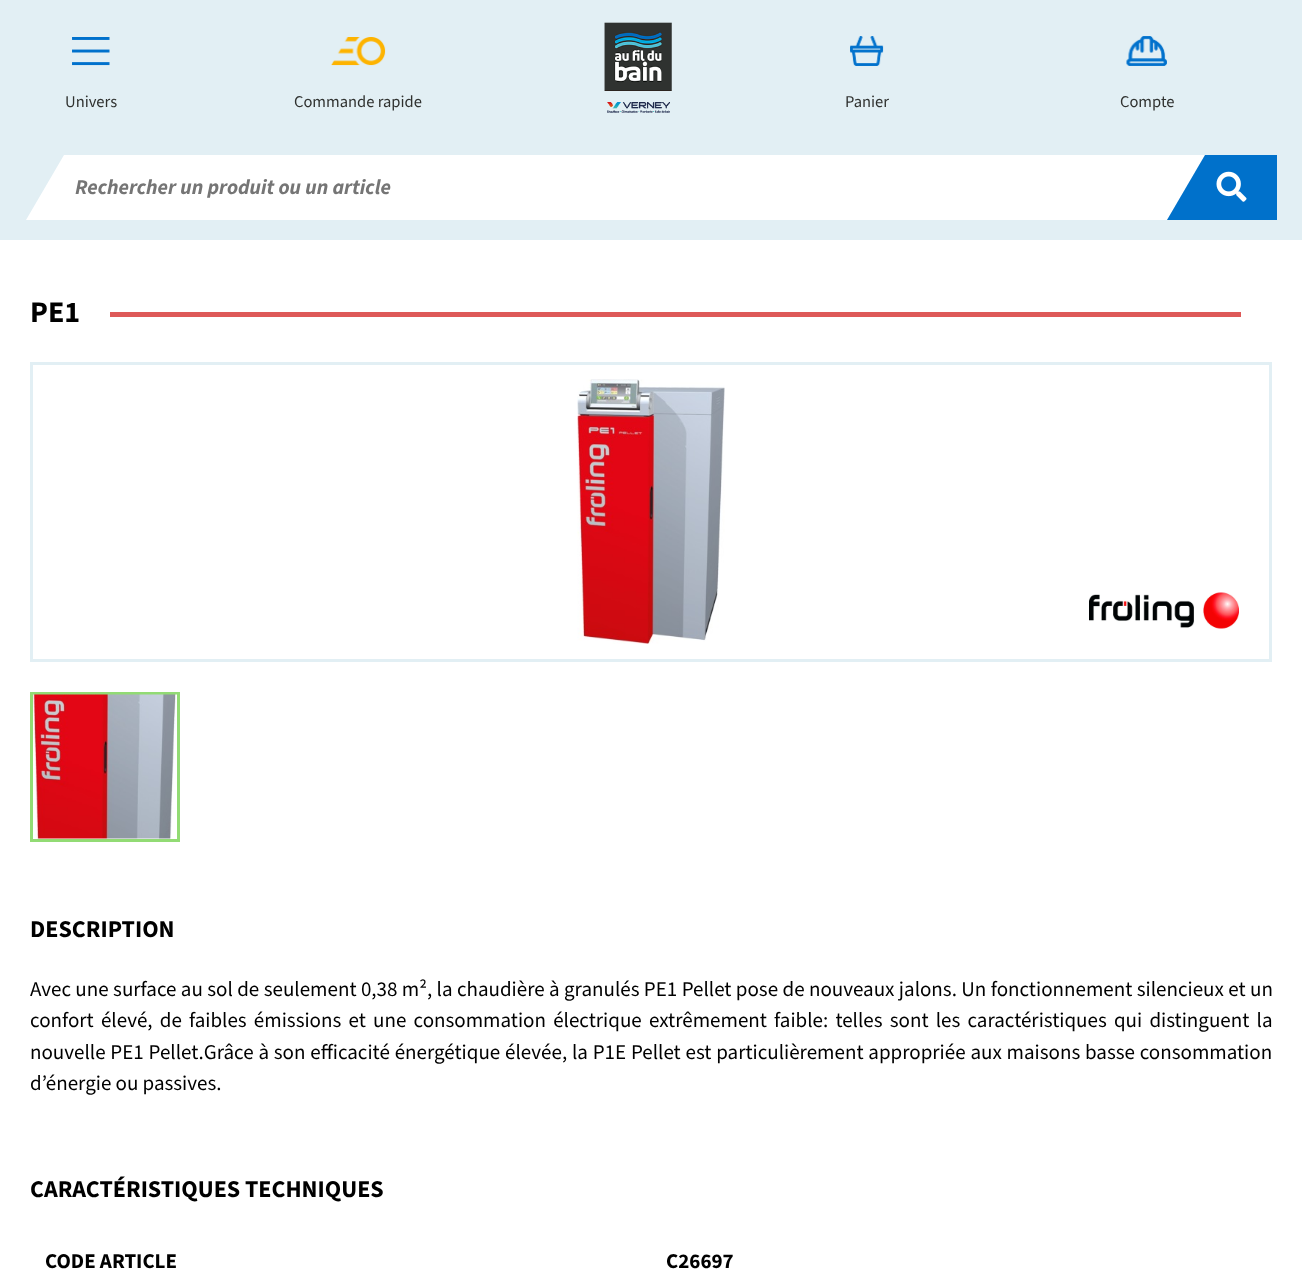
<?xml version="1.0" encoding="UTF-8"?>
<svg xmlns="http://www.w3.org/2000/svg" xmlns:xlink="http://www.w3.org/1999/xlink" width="1302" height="1283">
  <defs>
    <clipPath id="clip1"><rect y="155" width="1277" height="66" /></clipPath>
  </defs>
  <rect width="100%" height="100%" fill="#ffffff" />
  <rect width="1302" height="240" fill="#e2eff4" />
  <image x="72" y="37" width="38" height="29" xlink:href="image1.png" />
  <image x="331" y="37" width="55" height="29" xlink:href="image2.png" />
  <image x="604" y="22" width="68" height="91" xlink:href="image3.png" />
  <image x="850" y="36" width="34" height="30" xlink:href="image4.png" />
  <image x="1126" y="36" width="41" height="30" xlink:href="image5.png" />
  <path d="M 1205 155 l -38 65 h -1141 l 38 -65 z" fill="#ffffff" />
  <g clip-path="url(#clip1)">
    <path d="M 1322 186 l -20 34 h -135 l 38 -65 h 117 z" fill="#0071cb" />
  </g>
  <image x="1216" y="171" width="31" height="31" xlink:href="image6.png" />
  <rect x="110" y="312" width="1131" height="5" fill="#de5958" />
  <rect x="31.5" y="363.5" width="1239" height="297" fill="none" stroke="#e2eff4" stroke-width="3" />
  <image x="577" y="379" width="148" height="265" xlink:href="image7.png" />
  <image x="1089" y="592" width="150" height="37" xlink:href="image8.png" />
  <rect x="31.5" y="693.5" width="147" height="147" fill="none" stroke="#92db74" stroke-width="3" />
  <image x="33" y="694" width="144" height="145" xlink:href="image9.png" />
  <text x="65" y="107" style="font-family: 'Source Sans 3'; font-size: 16.5px; fill: #2f312f">Univers</text>
  <text x="294" y="107" style="font-family: 'Source Sans 3'; font-size: 16.5px; fill: #2f312f">Commande rapide</text>
  <text x="845" y="107" style="font-family: 'Source Sans 3'; font-size: 16.5px; fill: #2f312f">Panier</text>
  <text x="1120" y="107" style="font-family: 'Source Sans 3'; font-size: 16.5px; fill: #2f312f">Compte</text>
  <text x="75" y="194" style="font-family: 'Source Sans 3'; font-size: 21px; font-weight: bold; font-style: italic; fill: #757575">Rechercher un produit ou un article</text>
  <text x="30" y="322" style="font-family: 'Source Sans 3'; font-size: 30px; font-weight: bold; fill: #000000">PE1</text>
  <text x="30" y="937" style="font-family: 'Source Sans 3'; font-size: 24px; font-weight: bold; fill: #000000">DESCRIPTION</text>
  <text x="30" y="996" word-spacing="0.2" style="font-family: 'Source Sans 3'; font-size: 21px; fill: #000000">Avec une surface au sol de seulement 0,38 m², la chaudière à granulés PE1 Pellet pose de nouveaux jalons. Un fonctionnement silencieux et un</text>
  <text x="30" y="1027" word-spacing="3" style="font-family: 'Source Sans 3'; font-size: 21px; fill: #000000">confort élevé, de faibles émissions et une consommation électrique extrêmement faible: telles sont les caractéristiques qui distinguent la</text>
  <text x="30" y="1059" word-spacing="0.6" style="font-family: 'Source Sans 3'; font-size: 21px; fill: #000000">nouvelle PE1 Pellet.Grâce à son efficacité énergétique élevée, la P1E Pellet est particulièrement appropriée aux maisons basse consommation</text>
  <text x="30" y="1090" style="font-family: 'Source Sans 3'; font-size: 21px; fill: #000000">d’énergie ou passives.</text>
  <text x="30" y="1197" style="font-family: 'Source Sans 3'; font-size: 24px; font-weight: bold; fill: #000000">CARACTÉRISTIQUES TECHNIQUES</text>
  <text x="45" y="1268" style="font-family: 'Source Sans 3'; font-size: 21px; font-weight: bold; fill: #000000">CODE ARTICLE</text>
  <text x="666" y="1268" style="font-family: 'Source Sans 3'; font-size: 21px; font-weight: bold; fill: #000000">C26697</text>
</svg>
